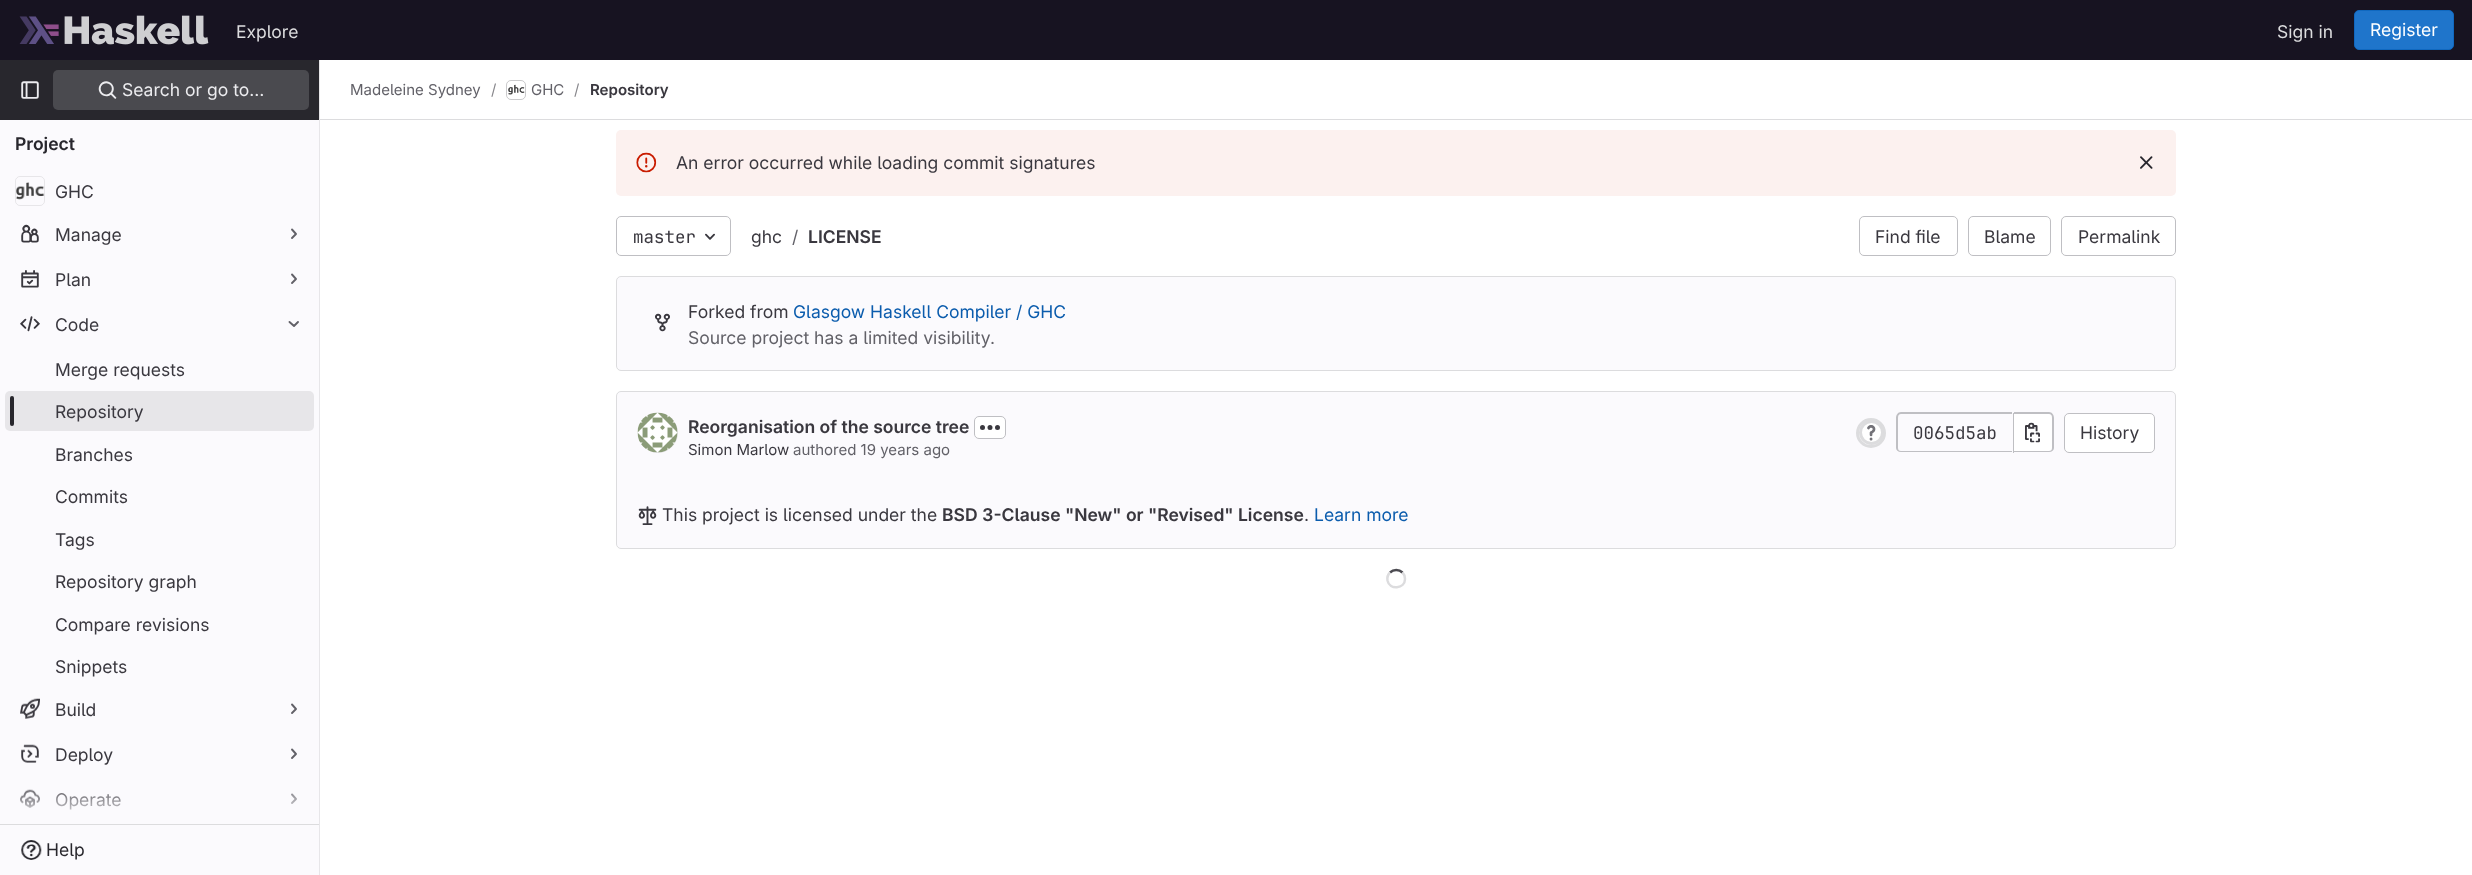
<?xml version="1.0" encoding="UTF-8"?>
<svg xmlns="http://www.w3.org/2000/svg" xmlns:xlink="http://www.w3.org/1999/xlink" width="2472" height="875">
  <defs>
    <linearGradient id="g1" gradientUnits="userSpaceOnUse" x1="159" y1="779" x2="159" y2="824"><stop offset="0" stop-color="#fbfafd" stop-opacity="0" /><stop offset="1" stop-color="#fbfafd" /></linearGradient>
  </defs>
  <rect width="100%" height="100%" fill="#ffffff" />
  <rect width="2472" height="60" fill="#171321" />
  <image x="19" y="15" width="190" height="30" xlink:href="image1.png" />
  <rect x="2354.5" y="10.5" width="99" height="39" rx="4.5" fill="#1f75cb" stroke="#1068bf" />
  <rect y="120" width="319" height="755" fill="#fbfafd" />
  <rect x="319" y="60" width="1" height="815" fill="#e7e6e9" />
  <rect y="60" width="319" height="60" fill="#28272d" />
  <image x="21" y="81" width="18" height="18" xlink:href="image2.png" />
  <rect x="53" y="70" width="256" height="40" rx="5" fill="#4a4a4f" />
  <image x="98" y="81" width="19" height="18" xlink:href="image3.png" />
  <rect y="824" width="319" height="1" fill="#dcdcde" />
  <image x="16" y="182" width="29" height="18" xlink:href="image4.png" />
  <rect x="15.5" y="176.5" width="29" height="29" rx="4.5" fill="none" stroke="#050506" stroke-opacity="0.08" />
  <image x="21" y="224" width="18" height="19" xlink:href="image5.png" />
  <path d="M 292 229.5 l 4 4.5 l -4 4" fill="none" stroke="#626168" stroke-width="1.9" stroke-linecap="round" stroke-linejoin="round" />
  <image x="21" y="270" width="18" height="18" xlink:href="image6.png" />
  <path d="M 292 274.5 l 4 4.5 l -4 4" fill="none" stroke="#626168" stroke-width="1.9" stroke-linecap="round" stroke-linejoin="round" />
  <image x="20" y="316" width="20" height="16" xlink:href="image7.png" />
  <path d="M 298 322 l -4 4 l -4.5 -4" fill="none" stroke="#626168" stroke-width="1.9" stroke-linecap="round" stroke-linejoin="round" />
  <rect x="5" y="391" width="309" height="40" rx="5" fill="#e7e6e9" />
  <rect x="10" y="396" width="4" height="30" rx="2" fill="#28272d" />
  <image x="20" y="698" width="20" height="21" xlink:href="image8.png" />
  <path d="M 292 704.5 l 4 4.5 l -4 4" fill="none" stroke="#626168" stroke-width="1.9" stroke-linecap="round" stroke-linejoin="round" />
  <image x="21" y="744" width="18" height="19" xlink:href="image9.png" />
  <path d="M 292 749.5 l 4 4.5 l -4 4" fill="none" stroke="#626168" stroke-width="1.9" stroke-linecap="round" stroke-linejoin="round" />
  <image x="20" y="789" width="20" height="19" xlink:href="image10.png" />
  <path d="M 292 794.5 l 4 4.5 l -4 4" fill="none" stroke="#626168" stroke-width="1.9" stroke-linecap="round" stroke-linejoin="round" />
  <image x="21" y="840" width="21" height="20" xlink:href="image11.png" />
  <rect x="320" y="119" width="2152" height="1" fill="#dcdcde" />
  <rect x="506.5" y="80.5" width="19" height="19" rx="4.5" fill="none" stroke="#dcdcde" />
  <image x="508" y="84" width="17" height="11" xlink:href="image12.png" />
  <rect x="506.5" y="80.5" width="19" height="19" rx="4.5" fill="none" stroke="#050506" stroke-opacity="0.08" />
  <rect x="616" y="130" width="1560" height="66" rx="5" fill="#fcf1ef" />
  <image x="636" y="152" width="21" height="21" xlink:href="image13.png" />
  <image x="2140" y="156" width="13" height="13" xlink:href="image14.png" />
  <rect x="616.5" y="216.5" width="114" height="39" rx="4.5" fill="none" stroke="#bfbfc3" />
  <image x="705" y="233" width="10" height="7" xlink:href="image15.png" />
  <rect x="1859.5" y="216.5" width="98" height="39" rx="4.5" fill="none" stroke="#bfbfc3" />
  <rect x="1968.5" y="216.5" width="82" height="39" rx="4.5" fill="none" stroke="#bfbfc3" />
  <rect x="2061.5" y="216.5" width="114" height="39" rx="4.5" fill="none" stroke="#bfbfc3" />
  <rect x="616.5" y="276.5" width="1559" height="94" rx="4.5" fill="#fbfafd" stroke="#dcdcde" />
  <image x="655" y="313" width="15" height="19" xlink:href="image16.png" />
  <rect x="616.5" y="391.5" width="1559" height="157" rx="4.5" fill="#fbfafd" stroke="#dcdcde" />
  <circle cx="658" cy="433" r="19.5" fill="none" stroke="#e7e6e9" />
  <image x="637" y="412" width="41" height="41" xlink:href="image17.png" />
  <rect x="974.5" y="416.5" width="31" height="22" rx="4.5" fill="#ffffff" stroke="#bfbfc3" />
  <image x="980" y="425" width="20" height="5" xlink:href="image18.png" />
  <circle cx="1871" cy="433" r="13.5" fill="none" stroke="#dcdcde" stroke-width="3" />
  <circle cx="1871.5" cy="432.5" r="11" fill="#ffffff" stroke="#dcdcde" stroke-width="3" />
  <image x="1867" y="425" width="9" height="16" xlink:href="image19.png" />
  <path d="M 1901 412 h 111 v 40 h -111 c -3 0 -5 -2 -5 -4 v -30 c 0 -3 2 -6 5 -6 z m 0 2 h 111 v 37 h -111 c -2 0 -3 -1 -3 -3 v -30 c 0 -3 1 -4 3 -4 z" fill="#bfbfc3" fill-rule="evenodd" />
  <path d="M 2014 414 h 35 c 2 0 4 2 4 4 v 29 c 0 2 -2 4 -4 4 h -35 z" fill="#ffffff" />
  <path d="M 2014 412 h 35 c 3 0 5 3 5 6 v 30 c 0 2 -2 4 -5 4 h -35 z m 0 2 h 35 c 2 0 3 1 3 4 v 30 c 0 2 -1 3 -3 3 h -35 z" fill="#bfbfc3" fill-rule="evenodd" />
  <rect x="2013" y="413" width="1" height="40" fill="#bfbfc3" />
  <image x="2025" y="422" width="15" height="21" xlink:href="image20.png" />
  <rect x="2064.5" y="413.5" width="90" height="39" rx="4.5" fill="#ffffff" stroke="#bfbfc3" />
  <image x="638" y="506" width="19" height="19" xlink:href="image21.png" />
  <path d="M 1390 572.5 c 3.5 -3.5 9 -3.5 12.5 0" fill="none" stroke="#4c4b51" stroke-width="2.5" />
  <path d="M 1402.5 572.5 c 1.5 1.5 2.5 4 2.5 6.5 c 0 10 -15.5 11.5 -17.5 1.5 c -0.5 -3 0.5 -6 2.5 -8" fill="none" stroke="#dcdcde" stroke-width="2.5" />
  <text x="236" y="38" style="font-family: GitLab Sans; font-size: 17.5px; fill: #dcdcde">Explore</text>
  <text x="2277" y="38" style="font-family: GitLab Sans; font-size: 17.5px; fill: #dcdcde">Sign in</text>
  <text x="2370" y="36" style="font-family: GitLab Sans; font-size: 17.5px; fill: #ffffff">Register</text>
  <text x="122" y="96" style="font-family: GitLab Sans; font-size: 17.5px; fill: #ececef">Search or go to…</text>
  <text x="15" y="150" style="font-family: GitLab Sans; font-size: 17.5px; font-weight: 600; fill: #28272d">Project</text>
  <text x="55" y="198" style="font-family: GitLab Sans; font-size: 17.5px; fill: #3a383f">GHC</text>
  <text x="55" y="241" style="font-family: GitLab Sans; font-size: 17.5px; fill: #3a383f">Manage</text>
  <text x="55" y="286" style="font-family: GitLab Sans; font-size: 17.5px; fill: #3a383f">Plan</text>
  <text x="55" y="331" style="font-family: GitLab Sans; font-size: 17.5px; fill: #3a383f">Code</text>
  <text x="55" y="376" style="font-family: GitLab Sans; font-size: 17.5px; fill: #3a383f">Merge requests</text>
  <text x="55" y="418" style="font-family: GitLab Sans; font-size: 17.5px; fill: #3a383f">Repository</text>
  <text x="55" y="461" style="font-family: GitLab Sans; font-size: 17.5px; fill: #3a383f">Branches</text>
  <text x="55" y="503" style="font-family: GitLab Sans; font-size: 17.5px; fill: #3a383f">Commits</text>
  <text x="55" y="546" style="font-family: GitLab Sans; font-size: 17.5px; fill: #3a383f">Tags</text>
  <text x="55" y="588" style="font-family: GitLab Sans; font-size: 17.5px; fill: #3a383f">Repository graph</text>
  <text x="55" y="631" style="font-family: GitLab Sans; font-size: 17.5px; fill: #3a383f">Compare revisions</text>
  <text x="55" y="673" style="font-family: GitLab Sans; font-size: 17.5px; fill: #3a383f">Snippets</text>
  <text x="55" y="716" style="font-family: GitLab Sans; font-size: 17.5px; fill: #3a383f">Build</text>
  <text x="55" y="761" style="font-family: GitLab Sans; font-size: 17.5px; fill: #3a383f">Deploy</text>
  <text x="55" y="806" style="font-family: GitLab Sans; font-size: 17.5px; fill: #3a383f">Operate</text>
  <rect x="20" y="789" width="277" height="21" fill="url(#g1)" />
  <text x="46" y="856" style="font-family: GitLab Sans; font-size: 17.5px; fill: #28272d">Help</text>
  <text x="350" y="95" style="font-family: GitLab Sans; font-size: 15px; fill: #626168">Madeleine Sydney</text>
  <text x="491" y="95" style="font-family: GitLab Sans; font-size: 15px; fill: #89888d">/</text>
  <text x="531" y="95" style="font-family: GitLab Sans; font-size: 15px; fill: #626168">GHC</text>
  <text x="574" y="95" style="font-family: GitLab Sans; font-size: 15px; fill: #89888d">/</text>
  <text x="590" y="95" style="font-family: GitLab Sans; font-size: 15px; font-weight: 600; fill: #3a383f">Repository</text>
  <text x="676" y="169" style="font-family: GitLab Sans; font-size: 17.5px; fill: #3a383f">An error occurred while loading commit signatures</text>
  <text x="633" y="243" style="font-family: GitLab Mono; font-size: 17.5px; fill: #3a383f">master</text>
  <text x="751" y="243" style="font-family: GitLab Sans; font-size: 17.5px; fill: #3a383f">ghc</text>
  <text x="792" y="243" style="font-family: GitLab Sans; font-size: 17.5px; fill: #626168">/</text>
  <text x="808" y="243" style="font-family: GitLab Sans; font-size: 17.5px; font-weight: 600; fill: #3a383f">LICENSE</text>
  <text x="1875" y="243" style="font-family: GitLab Sans; font-size: 17.5px; fill: #3a383f">Find file</text>
  <text x="1984" y="243" style="font-family: GitLab Sans; font-size: 17.5px; fill: #3a383f">Blame</text>
  <text x="2078" y="243" style="font-family: GitLab Sans; font-size: 17.5px; fill: #3a383f">Permalink</text>
  <text x="688" y="318" style="font-family: GitLab Sans; font-size: 17.5px; fill: #3a383f">Forked from</text>
  <text x="793" y="318" style="font-family: GitLab Sans; font-size: 17.5px; fill: #0b5cad">Glasgow Haskell Compiler / GHC</text>
  <text x="688" y="344" style="font-family: GitLab Sans; font-size: 17.5px; fill: #626168">Source project has a limited visibility.</text>
  <text x="688" y="433" style="font-family: GitLab Sans; font-size: 17.5px; font-weight: 600; fill: #3a383f">Reorganisation of the source tree</text>
  <text x="688" y="455" style="font-family: GitLab Sans; font-size: 15px; fill: #3a383f">Simon Marlow</text>
  <text x="793" y="455" style="font-family: GitLab Sans; font-size: 15px; fill: #626168">authored 19 years ago</text>
  <text x="1913" y="439" style="font-family: GitLab Mono; font-size: 17.5px; fill: #3a383f">0065d5ab</text>
  <text x="2080" y="439" style="font-family: GitLab Sans; font-size: 17.5px; fill: #3a383f">History</text>
  <text x="662" y="521" style="font-family: GitLab Sans; font-size: 17.5px; fill: #3a383f">This project is licensed under the</text>
  <text x="942" y="521" style="font-family: GitLab Sans; font-size: 17.5px; font-weight: 600; fill: #3a383f">BSD 3-Clause "New" or "Revised" License</text>
  <text x="1304" y="521" style="font-family: GitLab Sans; font-size: 17.5px; fill: #3a383f">.</text>
  <text x="1314" y="521" style="font-family: GitLab Sans; font-size: 17.5px; fill: #0b5cad">Learn more</text>
</svg>
